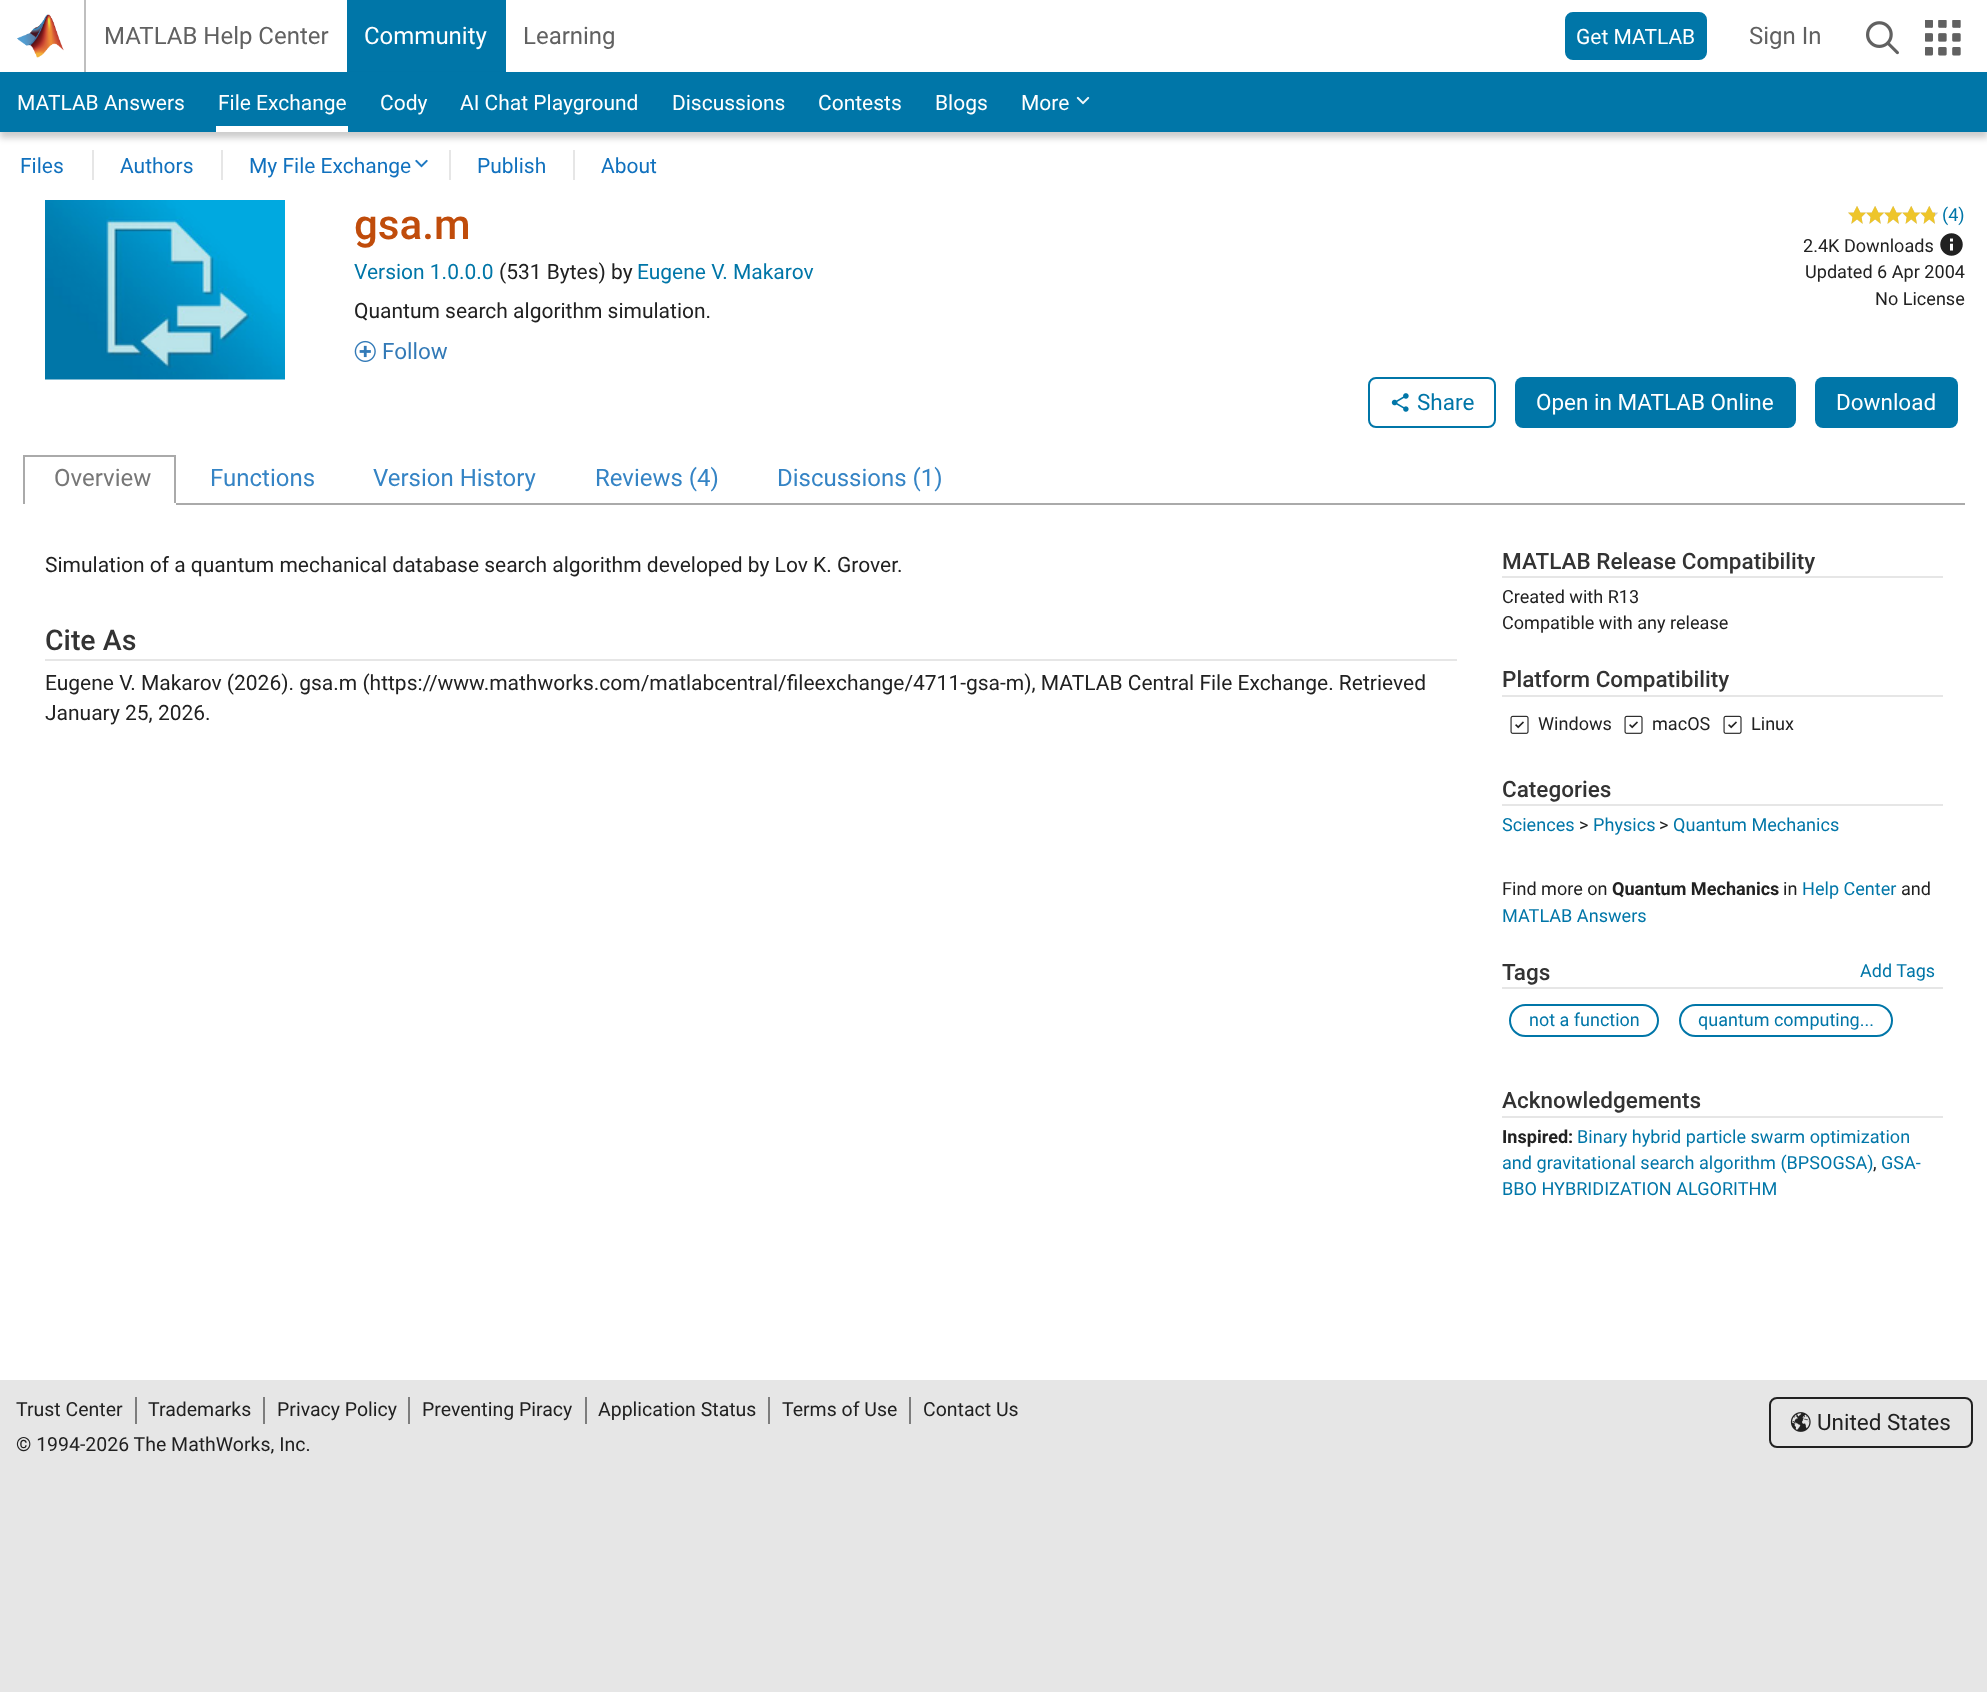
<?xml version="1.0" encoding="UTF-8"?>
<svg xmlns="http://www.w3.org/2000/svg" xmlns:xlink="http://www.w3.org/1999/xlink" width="1987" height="1692">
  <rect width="100%" height="100%" fill="#e6e6e6" />
  <rect width="1987" height="72" fill="#ffffff" />
  <rect x="84" width="2" height="72" fill="#bfbfbf" />
  <image x="17" y="14" width="47" height="44" xlink:href="image1.png" />
  <rect x="347" width="159" height="72" fill="#0076a8" />
  <rect x="1566" y="13" width="140" height="46" rx="7" fill="#0076a8" stroke="#0076a8" stroke-width="2" />
  <image x="1866" y="21" width="33" height="34" xlink:href="image2.png" />
  <image x="1925" y="20" width="36" height="36" xlink:href="image3.png" />
  <rect y="132" width="1987" height="1248" fill="#ffffff" />
  <rect y="78" width="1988" height="60" fill="#000000" fill-opacity="0.2" filter="blur(3px)" />
  <rect y="72" width="1987" height="60" fill="#0076a8" />
  <rect x="216" y="126" width="132" height="6" fill="#ffffff" />
  <image x="1076" y="96" width="14" height="9" xlink:href="image4.png" />
  <rect x="92" y="150" width="2" height="30" fill="#e6e6e6" />
  <rect x="221" y="150" width="2" height="30" fill="#e6e6e6" />
  <image x="415" y="159" width="13" height="9" xlink:href="image5.png" />
  <rect x="449" y="150" width="2" height="30" fill="#e6e6e6" />
  <rect x="573" y="150" width="2" height="30" fill="#e6e6e6" />
  <image x="45" y="200" width="240" height="180" xlink:href="image6.png" />
  <image x="354" y="340" width="22" height="22" xlink:href="image7.png" />
  <image x="1848" y="206" width="90" height="18" xlink:href="image8.png" />
  <image x="1848" y="206" width="87" height="18" xlink:href="image9.png" />
  <image x="1940" y="233" width="23" height="23" xlink:href="image10.png" />
  <rect x="1369" y="378" width="126" height="49" rx="7" fill="none" stroke="#0076a8" stroke-width="2" />
  <image x="1391" y="393" width="18" height="19" xlink:href="image11.png" />
  <rect x="1515" y="377" width="281" height="51" rx="8" fill="#0076a8" />
  <rect x="1815" y="377" width="143" height="51" rx="8" fill="#0076a8" />
  <rect x="23" y="455" width="153" height="2" fill="#aaaaaa" />
  <rect x="174" y="455" width="2" height="49" fill="#aaaaaa" />
  <rect x="174" y="503" width="2" height="1" fill="#ffffff" />
  <rect x="23" y="455" width="2" height="49" fill="#aaaaaa" />
  <rect x="176" y="503" width="1789" height="2" fill="#aaaaaa" />
  <rect x="45" y="659" width="1412" height="2" fill="#e6e6e6" />
  <rect x="1502" y="576" width="441" height="2" fill="#e6e6e6" />
  <rect x="1502" y="695" width="441" height="2" fill="#e6e6e6" />
  <image x="1510" y="715" width="19" height="19" xlink:href="image12.png" />
  <image x="1624" y="715" width="19" height="19" xlink:href="image12.png" />
  <image x="1723" y="715" width="19" height="19" xlink:href="image12.png" />
  <rect x="1502" y="804" width="441" height="2" fill="#e6e6e6" />
  <rect x="1502" y="987" width="441" height="2" fill="#e6e6e6" />
  <rect x="1510" y="1005" width="148" height="31" rx="15.5" fill="none" stroke="#0076a8" stroke-width="2" />
  <rect x="1680" y="1005" width="212" height="31" rx="15.5" fill="none" stroke="#0076a8" stroke-width="2" />
  <rect x="1502" y="1116" width="441" height="2" fill="#e6e6e6" />
  <rect x="135" y="1397" width="2" height="27" fill="#7d7d7d" />
  <rect x="263" y="1397" width="2" height="27" fill="#7d7d7d" />
  <rect x="408" y="1397" width="2" height="27" fill="#7d7d7d" />
  <rect x="585" y="1397" width="2" height="27" fill="#7d7d7d" />
  <rect x="768" y="1397" width="2" height="27" fill="#7d7d7d" />
  <rect x="909" y="1397" width="2" height="27" fill="#7d7d7d" />
  <rect x="1770" y="1398" width="202" height="49" rx="7" fill="none" stroke="#212121" stroke-width="2" />
  <image x="1790" y="1412" width="21" height="20" xlink:href="image13.png" />
  <text x="104" y="44" style="font-family: Roboto; font-size: 24px; fill: #616161">MATLAB Help Center</text>
  <text x="364" y="44" style="font-family: Roboto; font-size: 24px; fill: #ffffff">Community</text>
  <text x="523" y="44" style="font-family: Roboto; font-size: 24px; fill: #616161">Learning</text>
  <text x="1576" y="44" style="font-family: Roboto; font-size: 21px; fill: #ffffff">Get MATLAB</text>
  <text x="1749" y="44" style="font-family: Roboto; font-size: 24px; fill: #616161">Sign In</text>
  <text x="17" y="110" style="font-family: Roboto; font-size: 21px; fill: #ffffff">MATLAB Answers</text>
  <text x="218" y="110" style="font-family: Roboto; font-size: 21px; fill: #ffffff">File Exchange</text>
  <text x="380" y="110" style="font-family: Roboto; font-size: 21px; fill: #ffffff">Cody</text>
  <text x="460" y="110" style="font-family: Roboto; font-size: 21px; fill: #ffffff">AI Chat Playground</text>
  <text x="672" y="110" style="font-family: Roboto; font-size: 21px; fill: #ffffff">Discussions</text>
  <text x="818" y="110" style="font-family: Roboto; font-size: 21px; fill: #ffffff">Contests</text>
  <text x="935" y="110" style="font-family: Roboto; font-size: 21px; fill: #ffffff">Blogs</text>
  <text x="1021" y="110" style="font-family: Roboto; font-size: 21px; fill: #ffffff">More</text>
  <text x="20" y="173" style="font-family: Roboto; font-size: 21px; fill: #1171be">Files</text>
  <text x="120" y="173" style="font-family: Roboto; font-size: 21px; fill: #1171be">Authors</text>
  <text x="249" y="173" style="font-family: Roboto; font-size: 21px; fill: #1171be">My File Exchange</text>
  <text x="477" y="173" style="font-family: Roboto; font-size: 21px; fill: #1171be">Publish</text>
  <text x="601" y="173" style="font-family: Roboto; font-size: 21px; fill: #1171be">About</text>
  <text x="354" y="239" style="font-family: Roboto; font-size: 42px; font-weight: 500; fill: #c04c0b">gsa.m</text>
  <text x="354" y="279" style="font-family: Roboto; font-size: 21px; fill: #0076a8">Version 1.0.0.0</text>
  <text x="499" y="279" style="font-family: Roboto; font-size: 21px; fill: #212121">(531 Bytes) by</text>
  <text x="637" y="279" style="font-family: Roboto; font-size: 21px; fill: #0076a8">Eugene V. Makarov</text>
  <text x="354" y="318" style="font-family: Roboto; font-size: 21px; fill: #212121">Quantum search algorithm simulation.</text>
  <text x="382" y="359" style="font-family: Roboto; font-size: 22.5px; fill: #337ab7">Follow</text>
  <text x="1942" y="221" style="font-family: Roboto; font-size: 18.1px; fill: #0076a8">(4)</text>
  <text x="1803" y="252" style="font-family: Roboto; font-size: 18.1px; fill: #212121">2.4K Downloads</text>
  <text x="1805" y="278" style="font-family: Roboto; font-size: 18.1px; fill: #212121">Updated 6 Apr 2004</text>
  <text x="1875" y="305" style="font-family: Roboto; font-size: 18.1px; fill: #212121">No License</text>
  <text x="1417" y="410" style="font-family: Roboto; font-size: 22.5px; fill: #0076a8">Share</text>
  <text x="1536" y="410" style="font-family: Roboto; font-size: 22.5px; fill: #ffffff">Open in MATLAB Online</text>
  <text x="1836" y="410" style="font-family: Roboto; font-size: 22.5px; fill: #ffffff">Download</text>
  <text x="54" y="486" style="font-family: Roboto; font-size: 24px; fill: #777777">Overview</text>
  <text x="210" y="486" style="font-family: Roboto; font-size: 24px; fill: #3584c5">Functions</text>
  <text x="373" y="486" style="font-family: Roboto; font-size: 24px; fill: #3584c5">Version History</text>
  <text x="595" y="486" style="font-family: Roboto; font-size: 24px; fill: #3584c5">Reviews (4)</text>
  <text x="777" y="486" style="font-family: Roboto; font-size: 24px; fill: #3584c5">Discussions (1)</text>
  <text x="45" y="572" style="font-family: Roboto; font-size: 21px; fill: #212121">Simulation of a quantum mechanical database search algorithm developed by Lov K. Grover.</text>
  <text x="45" y="650" style="font-family: Roboto; font-size: 28.5px; font-weight: 500; fill: #333333">Cite As</text>
  <text x="45" y="690" style="font-family: Roboto; font-size: 21px; fill: #212121">Eugene V. Makarov (2026). gsa.m (https://www.mathworks.com/matlabcentral/fileexchange/4711-gsa-m), MATLAB Central File Exchange. Retrieved</text>
  <text x="45" y="720" style="font-family: Roboto; font-size: 21px; fill: #212121">January 25, 2026.</text>
  <text x="1502" y="569" style="font-family: Roboto; font-size: 22.5px; font-weight: 500; fill: #333333">MATLAB Release Compatibility</text>
  <text x="1502" y="603" style="font-family: Roboto; font-size: 18.1px; fill: #212121">Created with R13</text>
  <text x="1502" y="629" style="font-family: Roboto; font-size: 18.1px; fill: #212121">Compatible with any release</text>
  <text x="1502" y="687" style="font-family: Roboto; font-size: 22.5px; font-weight: 500; fill: #333333">Platform Compatibility</text>
  <text x="1538" y="730" style="font-family: Roboto; font-size: 18.1px; fill: #212121">Windows</text>
  <text x="1652" y="730" style="font-family: Roboto; font-size: 18.1px; fill: #212121">macOS</text>
  <text x="1751" y="730" style="font-family: Roboto; font-size: 18.1px; fill: #212121">Linux</text>
  <text x="1502" y="797" style="font-family: Roboto; font-size: 22.5px; font-weight: 500; fill: #333333">Categories</text>
  <text x="1502" y="831" style="font-family: Roboto; font-size: 18.1px; fill: #0076a8">Sciences</text>
  <text x="1579" y="831" style="font-family: Roboto; font-size: 18.1px; fill: #212121">&gt;</text>
  <text x="1593" y="831" style="font-family: Roboto; font-size: 18.1px; fill: #0076a8">Physics</text>
  <text x="1659" y="831" style="font-family: Roboto; font-size: 18.1px; fill: #212121">&gt;</text>
  <text x="1673" y="831" style="font-family: Roboto; font-size: 18.1px; fill: #0076a8">Quantum Mechanics</text>
  <text x="1502" y="895" style="font-family: Roboto; font-size: 18.1px; fill: #212121">Find more on</text>
  <text x="1612" y="895" style="font-family: Roboto; font-size: 18.1px; font-weight: bold; fill: #212121">Quantum Mechanics</text>
  <text x="1783" y="895" style="font-family: Roboto; font-size: 18.1px; fill: #212121">in</text>
  <text x="1802" y="895" style="font-family: Roboto; font-size: 18.1px; fill: #0076a8">Help Center</text>
  <text x="1901" y="895" style="font-family: Roboto; font-size: 18.1px; fill: #212121">and</text>
  <text x="1502" y="922" style="font-family: Roboto; font-size: 18.1px; fill: #0076a8">MATLAB Answers</text>
  <text x="1502" y="980" style="font-family: Roboto; font-size: 22.5px; font-weight: 500; fill: #333333">Tags</text>
  <text x="1860" y="977" style="font-family: Roboto; font-size: 18px; fill: #0076a8">Add Tags</text>
  <text x="1529" y="1026" style="font-family: Roboto; font-size: 18px; fill: #0076a8">not a function</text>
  <text x="1698" y="1026" style="font-family: Roboto; font-size: 18px; fill: #0076a8">quantum computing...</text>
  <text x="1502" y="1108" style="font-family: Roboto; font-size: 22.5px; font-weight: 500; fill: #333333">Acknowledgements</text>
  <text x="1502" y="1143" style="font-family: Roboto; font-size: 18.1px; font-weight: bold; fill: #212121">Inspired:</text>
  <text x="1577" y="1143" style="font-family: Roboto; font-size: 18.1px; fill: #0076a8">Binary hybrid particle swarm optimization</text>
  <text x="1502" y="1169" style="font-family: Roboto; font-size: 18.1px; fill: #0076a8">and gravitational search algorithm (BPSOGSA)</text>
  <text x="1873" y="1169" style="font-family: Roboto; font-size: 18.1px; fill: #212121">,</text>
  <text x="1881" y="1169" style="font-family: Roboto; font-size: 18.1px; fill: #0076a8">GSA-</text>
  <text x="1502" y="1195" style="font-family: Roboto; font-size: 18.1px; fill: #0076a8">BBO HYBRIDIZATION ALGORITHM</text>
  <text x="16" y="1416" style="font-family: Roboto; font-size: 19.5px; fill: #212121">Trust Center</text>
  <text x="148" y="1416" style="font-family: Roboto; font-size: 19.5px; fill: #212121">Trademarks</text>
  <text x="277" y="1416" style="font-family: Roboto; font-size: 19.5px; fill: #212121">Privacy Policy</text>
  <text x="422" y="1416" style="font-family: Roboto; font-size: 19.5px; fill: #212121">Preventing Piracy</text>
  <text x="598" y="1416" style="font-family: Roboto; font-size: 19.5px; fill: #212121">Application Status</text>
  <text x="782" y="1416" style="font-family: Roboto; font-size: 19.5px; fill: #212121">Terms of Use</text>
  <text x="923" y="1416" style="font-family: Roboto; font-size: 19.5px; fill: #212121">Contact Us</text>
  <text x="16" y="1451" style="font-family: Roboto; font-size: 19.5px; fill: #212121">© 1994-2026 The MathWorks, Inc.</text>
  <text x="1817" y="1430" style="font-family: Roboto; font-size: 22.5px; fill: #212121">United States</text>
</svg>
